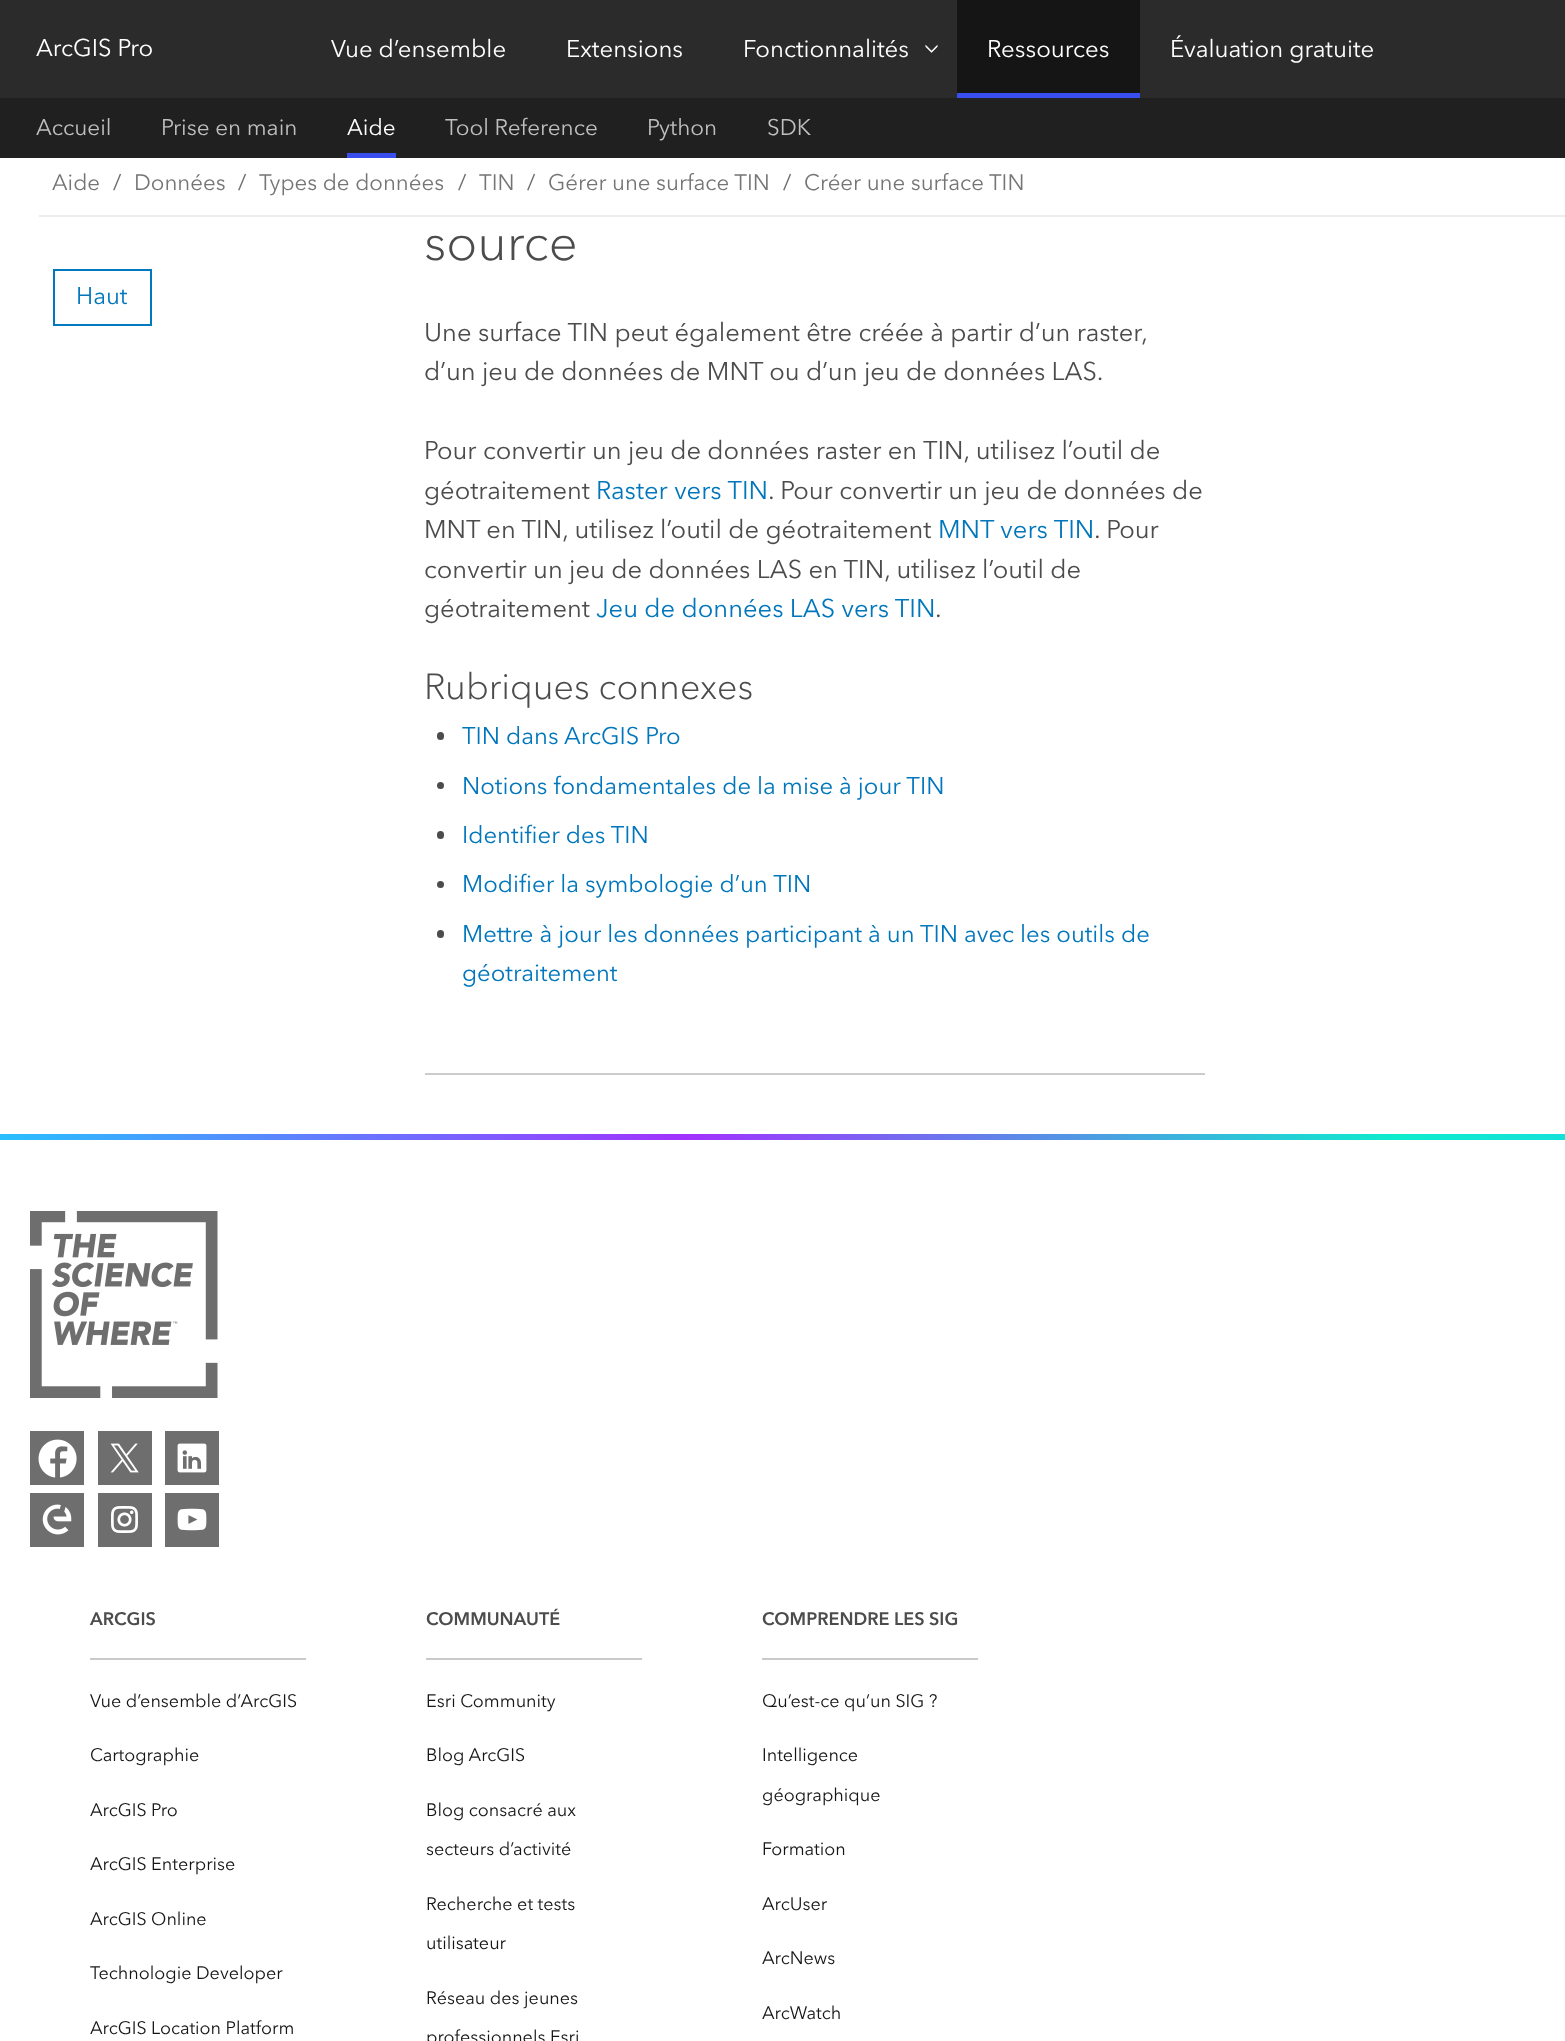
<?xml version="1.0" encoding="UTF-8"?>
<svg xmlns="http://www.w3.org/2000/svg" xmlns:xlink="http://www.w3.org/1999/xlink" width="1565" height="2041">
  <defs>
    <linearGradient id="g1" gradientUnits="userSpaceOnUse" x1="0" y1="1137" x2="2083" y2="1137"><stop offset="0" stop-color="#29bfff" /><stop offset="0.33" stop-color="#a231ff" /><stop offset="0.67" stop-color="#0deccd" /><stop offset="1" stop-color="#29bfff" /></linearGradient>
  </defs>
  <rect width="100%" height="100%" fill="#ffffff" />
  <rect width="1565" height="98" fill="#2b2b2b" />
  <image x="925" y="44" width="13" height="9" xlink:href="image1.png" />
  <rect x="957" width="183" height="93" fill="#151515" />
  <rect x="957" y="93" width="183" height="5" fill="#394eee" />
  <rect y="98" width="1565" height="60" fill="#202020" />
  <rect x="347" y="153" width="49" height="5" fill="#394eee" />
  <rect x="39" y="215" width="1526" height="2" fill="#ededed" />
  <rect x="54" y="270" width="97" height="55" fill="none" stroke="#0079c1" stroke-width="2" />
  <rect x="437" y="732" width="7" height="8" rx="3.5" fill="#4c4c4c" />
  <circle cx="440.5" cy="785.5" r="3.5" fill="#4c4c4c" />
  <rect x="437" y="831" width="7" height="8" rx="3.5" fill="#4c4c4c" />
  <circle cx="440.5" cy="884.5" r="3.5" fill="#4c4c4c" />
  <rect x="437" y="930" width="7" height="8" rx="3.5" fill="#4c4c4c" />
  <rect x="425" y="1073" width="780" height="2" fill="#cccccc" />
  <rect y="1134" width="1565" height="6" fill="url(#g1)" />
  <image x="30" y="1211" width="188" height="187" xlink:href="image2.png" />
  <rect x="30" y="1431" width="54" height="54" fill="#6e6e6e" />
  <image x="38" y="1439" width="39" height="39" xlink:href="image3.png" />
  <rect x="98" y="1431" width="54" height="54" fill="#6e6e6e" />
  <image x="110" y="1443" width="29" height="30" xlink:href="image4.png" />
  <rect x="165" y="1431" width="54" height="54" fill="#6e6e6e" />
  <image x="177" y="1443" width="30" height="30" xlink:href="image5.png" />
  <rect x="30" y="1493" width="54" height="54" fill="#6e6e6e" />
  <image x="42" y="1504" width="30" height="31" xlink:href="image6.png" />
  <rect x="98" y="1493" width="54" height="54" fill="#6e6e6e" />
  <image x="111" y="1506" width="27" height="27" xlink:href="image7.png" />
  <rect x="165" y="1493" width="54" height="54" fill="#6e6e6e" />
  <image x="177" y="1508" width="30" height="23" xlink:href="image8.png" />
  <rect x="90" y="1658" width="216" height="2" fill="#cacaca" />
  <rect x="426" y="1658" width="216" height="2" fill="#cacaca" />
  <rect x="762" y="1658" width="216" height="2" fill="#cacaca" />
  <text x="36" y="56" style="font-family: Avenir Next; font-size: 24px; fill: #ffffff">ArcGIS Pro</text>
  <text x="331" y="57" style="font-family: Avenir Next; font-size: 24px; fill: #ffffff">Vue d’ensemble</text>
  <text x="566" y="57" style="font-family: Avenir Next; font-size: 24px; fill: #ffffff">Extensions</text>
  <text x="743" y="57" style="font-family: Avenir Next; font-size: 24px; fill: #ffffff">Fonctionnalités</text>
  <text x="987" y="57" style="font-family: Avenir Next; font-size: 24px; fill: #ffffff">Ressources</text>
  <text x="1170" y="57" style="font-family: Avenir Next; font-size: 24px; fill: #ffffff">Évaluation gratuite</text>
  <text x="36" y="135" style="font-family: Avenir Next; font-size: 22.5px; fill: #bfbfbf">Accueil</text>
  <text x="161" y="135" style="font-family: Avenir Next; font-size: 22.5px; fill: #bfbfbf">Prise en main</text>
  <text x="347" y="135" style="font-family: Avenir Next; font-size: 22.5px; fill: #ffffff">Aide</text>
  <text x="445" y="135" style="font-family: Avenir Next; font-size: 22.5px; fill: #bfbfbf">Tool Reference</text>
  <text x="647" y="135" style="font-family: Avenir Next; font-size: 22.5px; fill: #bfbfbf">Python</text>
  <text x="767" y="135" style="font-family: Avenir Next; font-size: 22.5px; fill: #bfbfbf">SDK</text>
  <text x="52" y="190" style="font-family: Avenir Next; font-size: 22.25px; fill: #757575">Aide</text>
  <text x="113" y="190" style="font-family: Avenir Next; font-size: 22.25px; fill: #6e6e6e">/</text>
  <text x="134" y="190" style="font-family: Avenir Next; font-size: 22.25px; fill: #757575">Données</text>
  <text x="238" y="190" style="font-family: Avenir Next; font-size: 22.25px; fill: #6e6e6e">/</text>
  <text x="259" y="190" style="font-family: Avenir Next; font-size: 22.25px; fill: #757575">Types de données</text>
  <text x="458" y="190" style="font-family: Avenir Next; font-size: 22.25px; fill: #6e6e6e">/</text>
  <text x="479" y="190" style="font-family: Avenir Next; font-size: 22.25px; fill: #757575">TIN</text>
  <text x="527" y="190" style="font-family: Avenir Next; font-size: 22.25px; fill: #6e6e6e">/</text>
  <text x="548" y="190" style="font-family: Avenir Next; font-size: 22.25px; fill: #757575">Gérer une surface TIN</text>
  <text x="783" y="190" style="font-family: Avenir Next; font-size: 22.25px; fill: #6e6e6e">/</text>
  <text x="804" y="190" style="font-family: Avenir Next; font-size: 22.25px; fill: #757575">Créer une surface TIN</text>
  <text x="76" y="304" style="font-family: Avenir Next; font-size: 23.9px; fill: #0076bc">Haut</text>
  <text x="424" y="260" style="font-family: Avenir Next; font-size: 51px; font-weight: 300; fill: #4c4c4c">source</text>
  <text x="424" y="341" style="font-family: Avenir Next; font-size: 25.5px; fill: #4c4c4c">Une surface TIN peut également être créée à partir d’un raster,</text>
  <text x="424" y="380" style="font-family: Avenir Next; font-size: 25.5px; fill: #4c4c4c">d’un jeu de données de MNT ou d’un jeu de données LAS.</text>
  <text x="424" y="459" style="font-family: Avenir Next; font-size: 25.5px; fill: #4c4c4c">Pour convertir un jeu de données raster en TIN, utilisez l’outil de</text>
  <text x="424" y="499" style="font-family: Avenir Next; font-size: 25.5px; fill: #4c4c4c">géotraitement</text>
  <text x="596" y="499" style="font-family: Avenir Next; font-size: 25.5px; fill: #0076bc">Raster vers TIN</text>
  <text x="768" y="499" style="font-family: Avenir Next; font-size: 25.5px; fill: #4c4c4c">. Pour convertir un jeu de données de</text>
  <text x="424" y="538" style="font-family: Avenir Next; font-size: 25.5px; fill: #4c4c4c">MNT en TIN, utilisez l’outil de géotraitement</text>
  <text x="938" y="538" style="font-family: Avenir Next; font-size: 25.5px; fill: #0076bc">MNT vers TIN</text>
  <text x="1094" y="538" style="font-family: Avenir Next; font-size: 25.5px; fill: #4c4c4c">. Pour</text>
  <text x="424" y="578" style="font-family: Avenir Next; font-size: 25.5px; fill: #4c4c4c">convertir un jeu de données LAS en TIN, utilisez l’outil de</text>
  <text x="424" y="617" style="font-family: Avenir Next; font-size: 25.5px; fill: #4c4c4c">géotraitement</text>
  <text x="596" y="617" style="font-family: Avenir Next; font-size: 25.5px; fill: #0076bc">Jeu de données LAS vers TIN</text>
  <text x="935" y="617" style="font-family: Avenir Next; font-size: 25.5px; fill: #4c4c4c">.</text>
  <text x="424" y="699" style="font-family: Avenir Next; font-size: 36px; font-weight: 300; fill: #4c4c4c">Rubriques connexes</text>
  <text x="462" y="744" style="font-family: Avenir Next; font-size: 23.9px; fill: #0076bc">TIN dans ArcGIS Pro</text>
  <text x="462" y="794" style="font-family: Avenir Next; font-size: 23.9px; fill: #0076bc">Notions fondamentales de la mise à jour TIN</text>
  <text x="462" y="843" style="font-family: Avenir Next; font-size: 23.9px; fill: #0076bc">Identifier des TIN</text>
  <text x="462" y="892" style="font-family: Avenir Next; font-size: 23.9px; fill: #0076bc">Modifier la symbologie d’un TIN</text>
  <text x="462" y="942" style="font-family: Avenir Next; font-size: 23.9px; fill: #0076bc">Mettre à jour les données participant à un TIN avec les outils de</text>
  <text x="462" y="981" style="font-family: Avenir Next; font-size: 23.9px; fill: #0076bc">géotraitement</text>
  <text x="90" y="1625" style="font-family: Avenir Next; font-size: 18px; font-weight: bold; fill: #4c4c4c">ARCGIS</text>
  <text x="90" y="1707" style="font-family: 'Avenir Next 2'; font-size: 18px; fill: #151515">Vue d’ensemble d’ArcGIS</text>
  <text x="90" y="1761" style="font-family: 'Avenir Next 2'; font-size: 18px; fill: #151515">Cartographie</text>
  <text x="90" y="1816" style="font-family: 'Avenir Next 2'; font-size: 18px; fill: #151515">ArcGIS Pro</text>
  <text x="90" y="1870" style="font-family: 'Avenir Next 2'; font-size: 18px; fill: #151515">ArcGIS Enterprise</text>
  <text x="90" y="1925" style="font-family: 'Avenir Next 2'; font-size: 18px; fill: #151515">ArcGIS Online</text>
  <text x="90" y="1979" style="font-family: 'Avenir Next 2'; font-size: 18px; fill: #151515">Technologie Developer</text>
  <text x="90" y="2034" style="font-family: 'Avenir Next 2'; font-size: 18px; fill: #151515">ArcGIS Location Platform</text>
  <text x="426" y="1625" style="font-family: Avenir Next; font-size: 18px; font-weight: bold; fill: #4c4c4c">COMMUNAUTÉ</text>
  <text x="426" y="1707" style="font-family: 'Avenir Next 2'; font-size: 18px; fill: #151515">Esri Community</text>
  <text x="426" y="1761" style="font-family: 'Avenir Next 2'; font-size: 18px; fill: #151515">Blog ArcGIS</text>
  <text x="426" y="1816" style="font-family: 'Avenir Next 2'; font-size: 18px; fill: #151515">Blog consacré aux</text>
  <text x="426" y="1855" style="font-family: 'Avenir Next 2'; font-size: 18px; fill: #151515">secteurs d’activité</text>
  <text x="426" y="1910" style="font-family: 'Avenir Next 2'; font-size: 18px; fill: #151515">Recherche et tests</text>
  <text x="426" y="1949" style="font-family: 'Avenir Next 2'; font-size: 18px; fill: #151515">utilisateur</text>
  <text x="426" y="2004" style="font-family: 'Avenir Next 2'; font-size: 18px; fill: #151515">Réseau des jeunes</text>
  <text x="426" y="2043" style="font-family: 'Avenir Next 2'; font-size: 18px; fill: #151515">professionnels Esri</text>
  <text x="762" y="1625" style="font-family: Avenir Next; font-size: 18px; font-weight: bold; fill: #4c4c4c">COMPRENDRE LES SIG</text>
  <text x="762" y="1707" style="font-family: 'Avenir Next 2'; font-size: 18px; fill: #151515">Qu’est-ce qu’un SIG ?</text>
  <text x="762" y="1761" style="font-family: 'Avenir Next 2'; font-size: 18px; fill: #151515">Intelligence</text>
  <text x="762" y="1801" style="font-family: 'Avenir Next 2'; font-size: 18px; fill: #151515">géographique</text>
  <text x="762" y="1855" style="font-family: 'Avenir Next 2'; font-size: 18px; fill: #151515">Formation</text>
  <text x="762" y="1910" style="font-family: 'Avenir Next 2'; font-size: 18px; fill: #151515">ArcUser</text>
  <text x="762" y="1964" style="font-family: 'Avenir Next 2'; font-size: 18px; fill: #151515">ArcNews</text>
  <text x="762" y="2019" style="font-family: 'Avenir Next 2'; font-size: 18px; fill: #151515">ArcWatch</text>
</svg>
